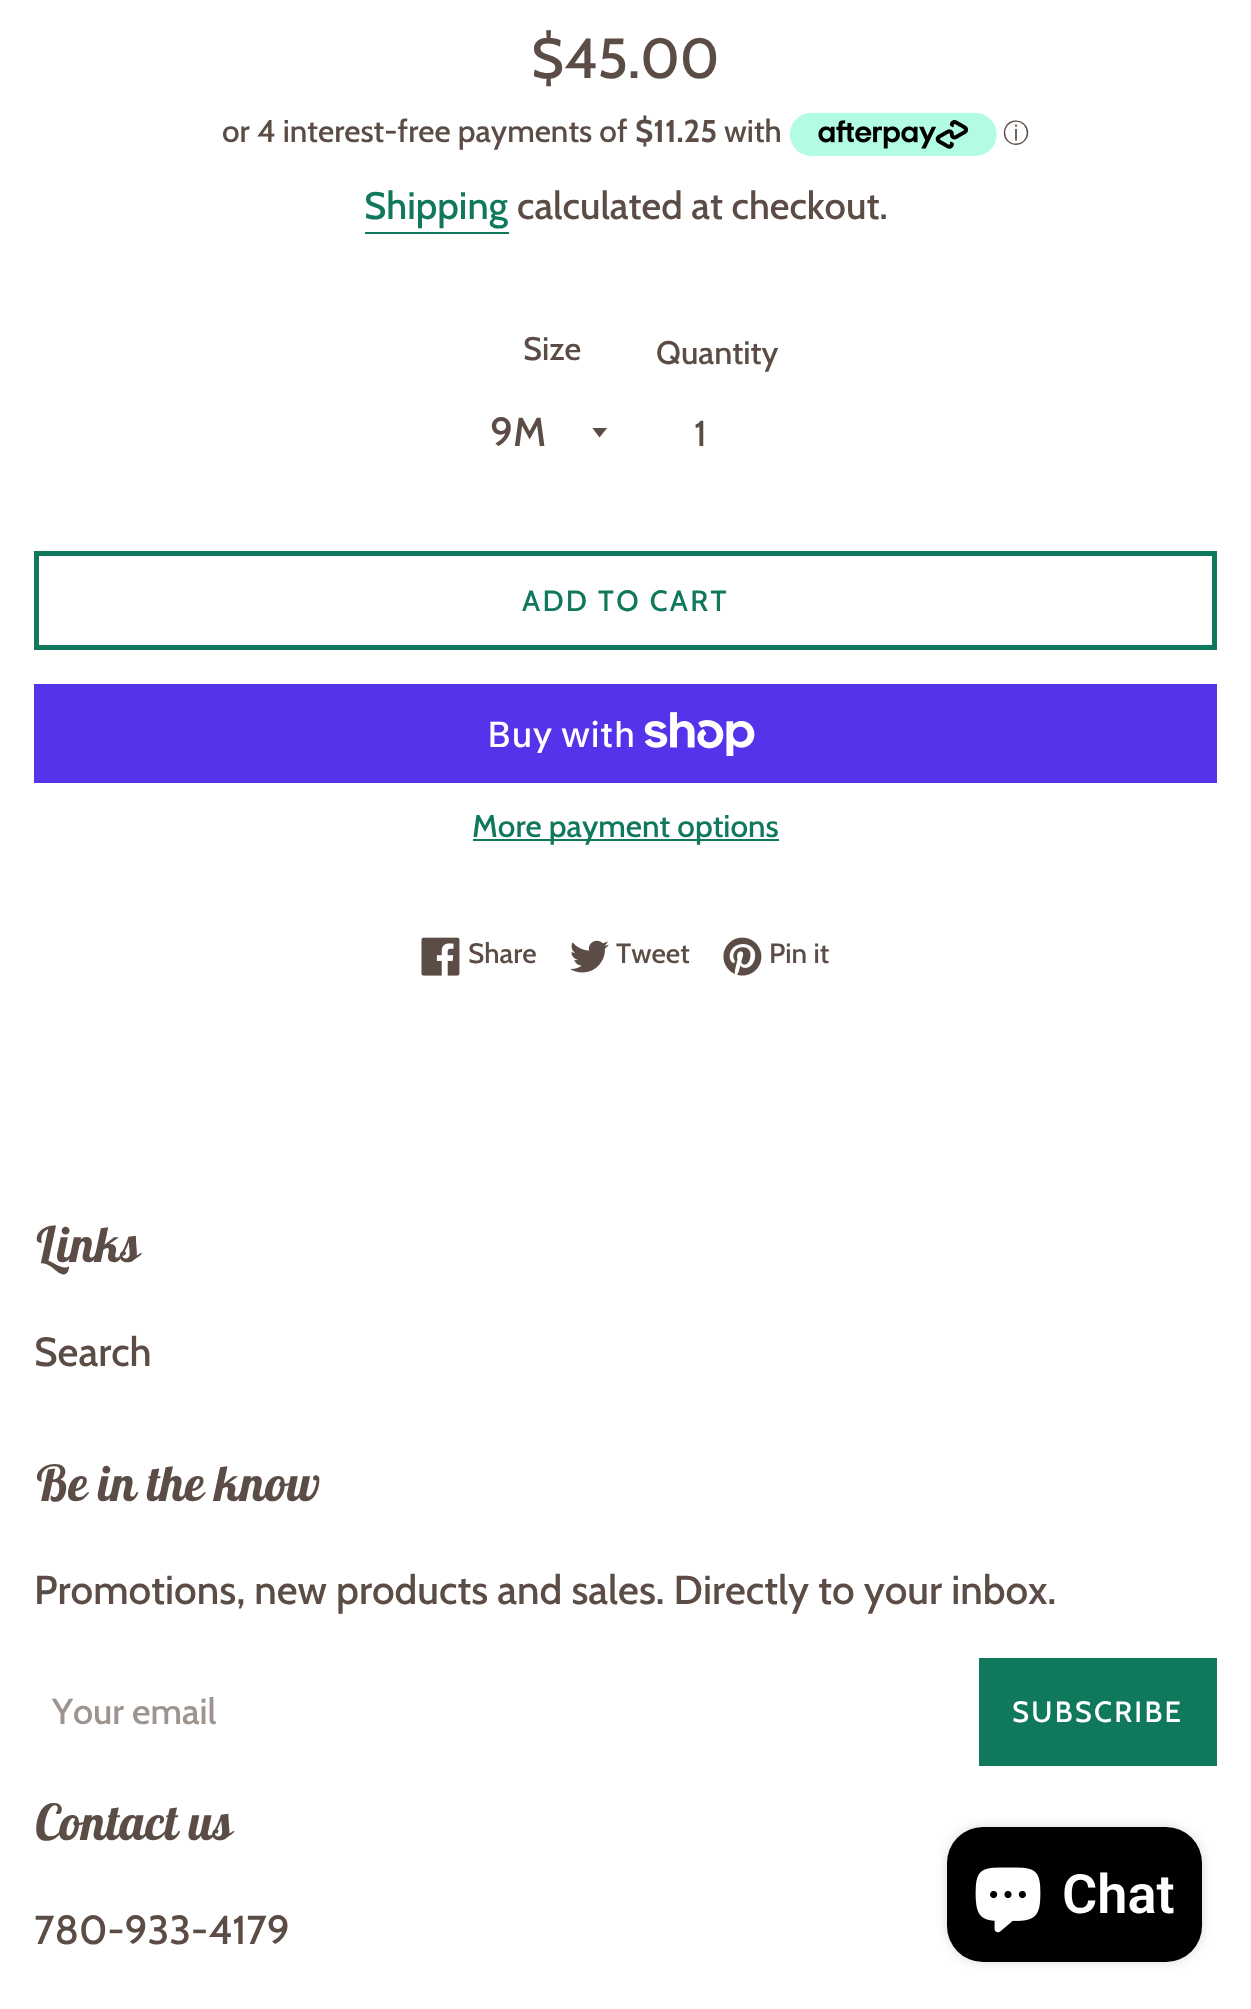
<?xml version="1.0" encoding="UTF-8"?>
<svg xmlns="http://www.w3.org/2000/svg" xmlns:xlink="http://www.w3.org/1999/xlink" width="1251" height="2009">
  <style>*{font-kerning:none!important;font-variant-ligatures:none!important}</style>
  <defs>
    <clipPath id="clip1"><rect x="592" y="428" width="18" height="11" /></clipPath>
  </defs>
  <rect width="100%" height="100%" fill="#ffffff" />
  <image x="790" y="112" width="207" height="44" xlink:href="image1.png" />
  <rect x="365" y="232" width="144" height="2" fill="#10785c" />
  <g clip-path="url(#clip1)">
    <path d="M 592 427.5 l 7.5 10 l 8 -10 z" fill="#5b4c45" />
  </g>
  <rect x="36.5" y="553.5" width="1178" height="94" fill="none" stroke="#10785c" stroke-width="5" />
  <rect x="34" y="684" width="1183" height="99" fill="#5433eb" />
  <image x="644" y="712" width="111" height="44" xlink:href="image2.png" />
  <rect x="473" y="839" width="306" height="2" fill="#10785c" />
  <image x="421" y="937" width="39" height="39" xlink:href="image3.png" />
  <image x="570" y="940" width="39" height="33" xlink:href="image4.png" />
  <image x="723" y="937" width="39" height="39" xlink:href="image5.png" />
  <rect x="979" y="1658" width="238" height="108" fill="#10785c" />
  <rect x="947" y="1827" width="255" height="135" rx="36" fill="#000000" fill-opacity="0.15" filter="blur(5.5px)" />
  <rect x="947" y="1827" width="255" height="135" rx="36" fill="#000000" />
  <image x="975" y="1867" width="66" height="66" xlink:href="image6.png" />
  <text x="531" y="78" style="font-family: Cabin; font-size: 56.5px; font-weight: 500; fill: #5b4c45">$45.00</text>
  <text x="222" y="142" style="font-family: Cabin; font-size: 31.5px; font-weight: 500; fill: #5b4c45">or 4 interest-free payments of</text>
  <text x="635" y="142" style="font-family: Cabin; font-size: 31.5px; font-weight: bold; fill: #5b4c45">$11.25</text>
  <text x="724" y="142" style="font-family: Cabin; font-size: 31.5px; font-weight: 500; fill: #5b4c45">with</text>
  <text x="1003" y="142" style="font-family: WenQuanYi Zen Hei; font-size: 26px; font-weight: 500; fill: #5b4c45">ⓘ</text>
  <text x="364" y="219" style="font-family: Cabin; font-size: 38.25px; font-weight: 500; fill: #10785c">Shipping</text>
  <text x="517" y="219" style="font-family: Cabin; font-size: 38.25px; font-weight: 500; fill: #5b4c45">calculated at checkout.</text>
  <text x="523" y="360" style="font-family: Cabin; font-size: 32.5px; font-weight: 500; fill: #5b4c45">Size</text>
  <text x="490" y="446" style="font-family: Cabin; font-size: 40.5px; font-weight: 500; fill: #5b4c45">9M</text>
  <text x="656" y="364" style="font-family: Cabin; font-size: 32.5px; font-weight: 500; fill: #5b4c45">Quantity</text>
  <text x="694" y="446" style="font-family: Cabin; font-size: 36px; font-weight: 500; fill: #5b4c45">1</text>
  <text x="522" y="611" style="font-family: Cabin; font-size: 29.25px; font-weight: 500; letter-spacing: 2.25px; fill: #10785c">ADD TO CART</text>
  <text x="487" y="747" style="font-family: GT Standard; font-size: 36px; font-weight: 500; fill: #ffffff">Buy with</text>
  <text x="472" y="837" style="font-family: Cabin; font-size: 31.5px; font-weight: 500; fill: #10785c">More payment options</text>
  <text x="468" y="963" style="font-family: Cabin; font-size: 28px; font-weight: 500; fill: #5b4c45">Share</text>
  <text x="616" y="963" style="font-family: Cabin; font-size: 28px; font-weight: 500; fill: #5b4c45">Tweet</text>
  <text x="769" y="963" style="font-family: Cabin; font-size: 28px; font-weight: 500; fill: #5b4c45">Pin it</text>
  <text x="34" y="1262" style="font-family: Lobster Two; font-size: 49.5px; font-weight: bold; font-style: italic; fill: #5b4c45">Links</text>
  <text x="34" y="1366" style="font-family: Cabin; font-size: 40.5px; font-weight: 500; fill: #5b4c45">Search</text>
  <text x="34" y="1501" style="font-family: Lobster Two; font-size: 49.5px; font-weight: bold; font-style: italic; fill: #5b4c45">Be in the know</text>
  <text x="34" y="1604" style="font-family: Cabin; font-size: 40.5px; font-weight: 500; fill: #5b4c45">Promotions, new products and sales. Directly to your inbox.</text>
  <text x="52" y="1724" style="font-family: Cabin; font-size: 36px; font-weight: 500; fill: #9d948f">Your email</text>
  <text x="1012" y="1722" style="font-family: Cabin; font-size: 29.25px; font-weight: 500; letter-spacing: 2.25px; fill: #ffffff">SUBSCRIBE</text>
  <text x="34" y="1840" style="font-family: Lobster Two; font-size: 49.5px; font-weight: bold; font-style: italic; fill: #5b4c45">Contact us</text>
  <text x="34" y="1944" style="font-family: Cabin; font-size: 40.5px; font-weight: 500; fill: #5b4c45">780-933-4179</text>
  <text x="1062" y="1913" style="font-family: Roboto; font-size: 54px; font-weight: 600; fill: #ffffff">Chat</text>
</svg>
